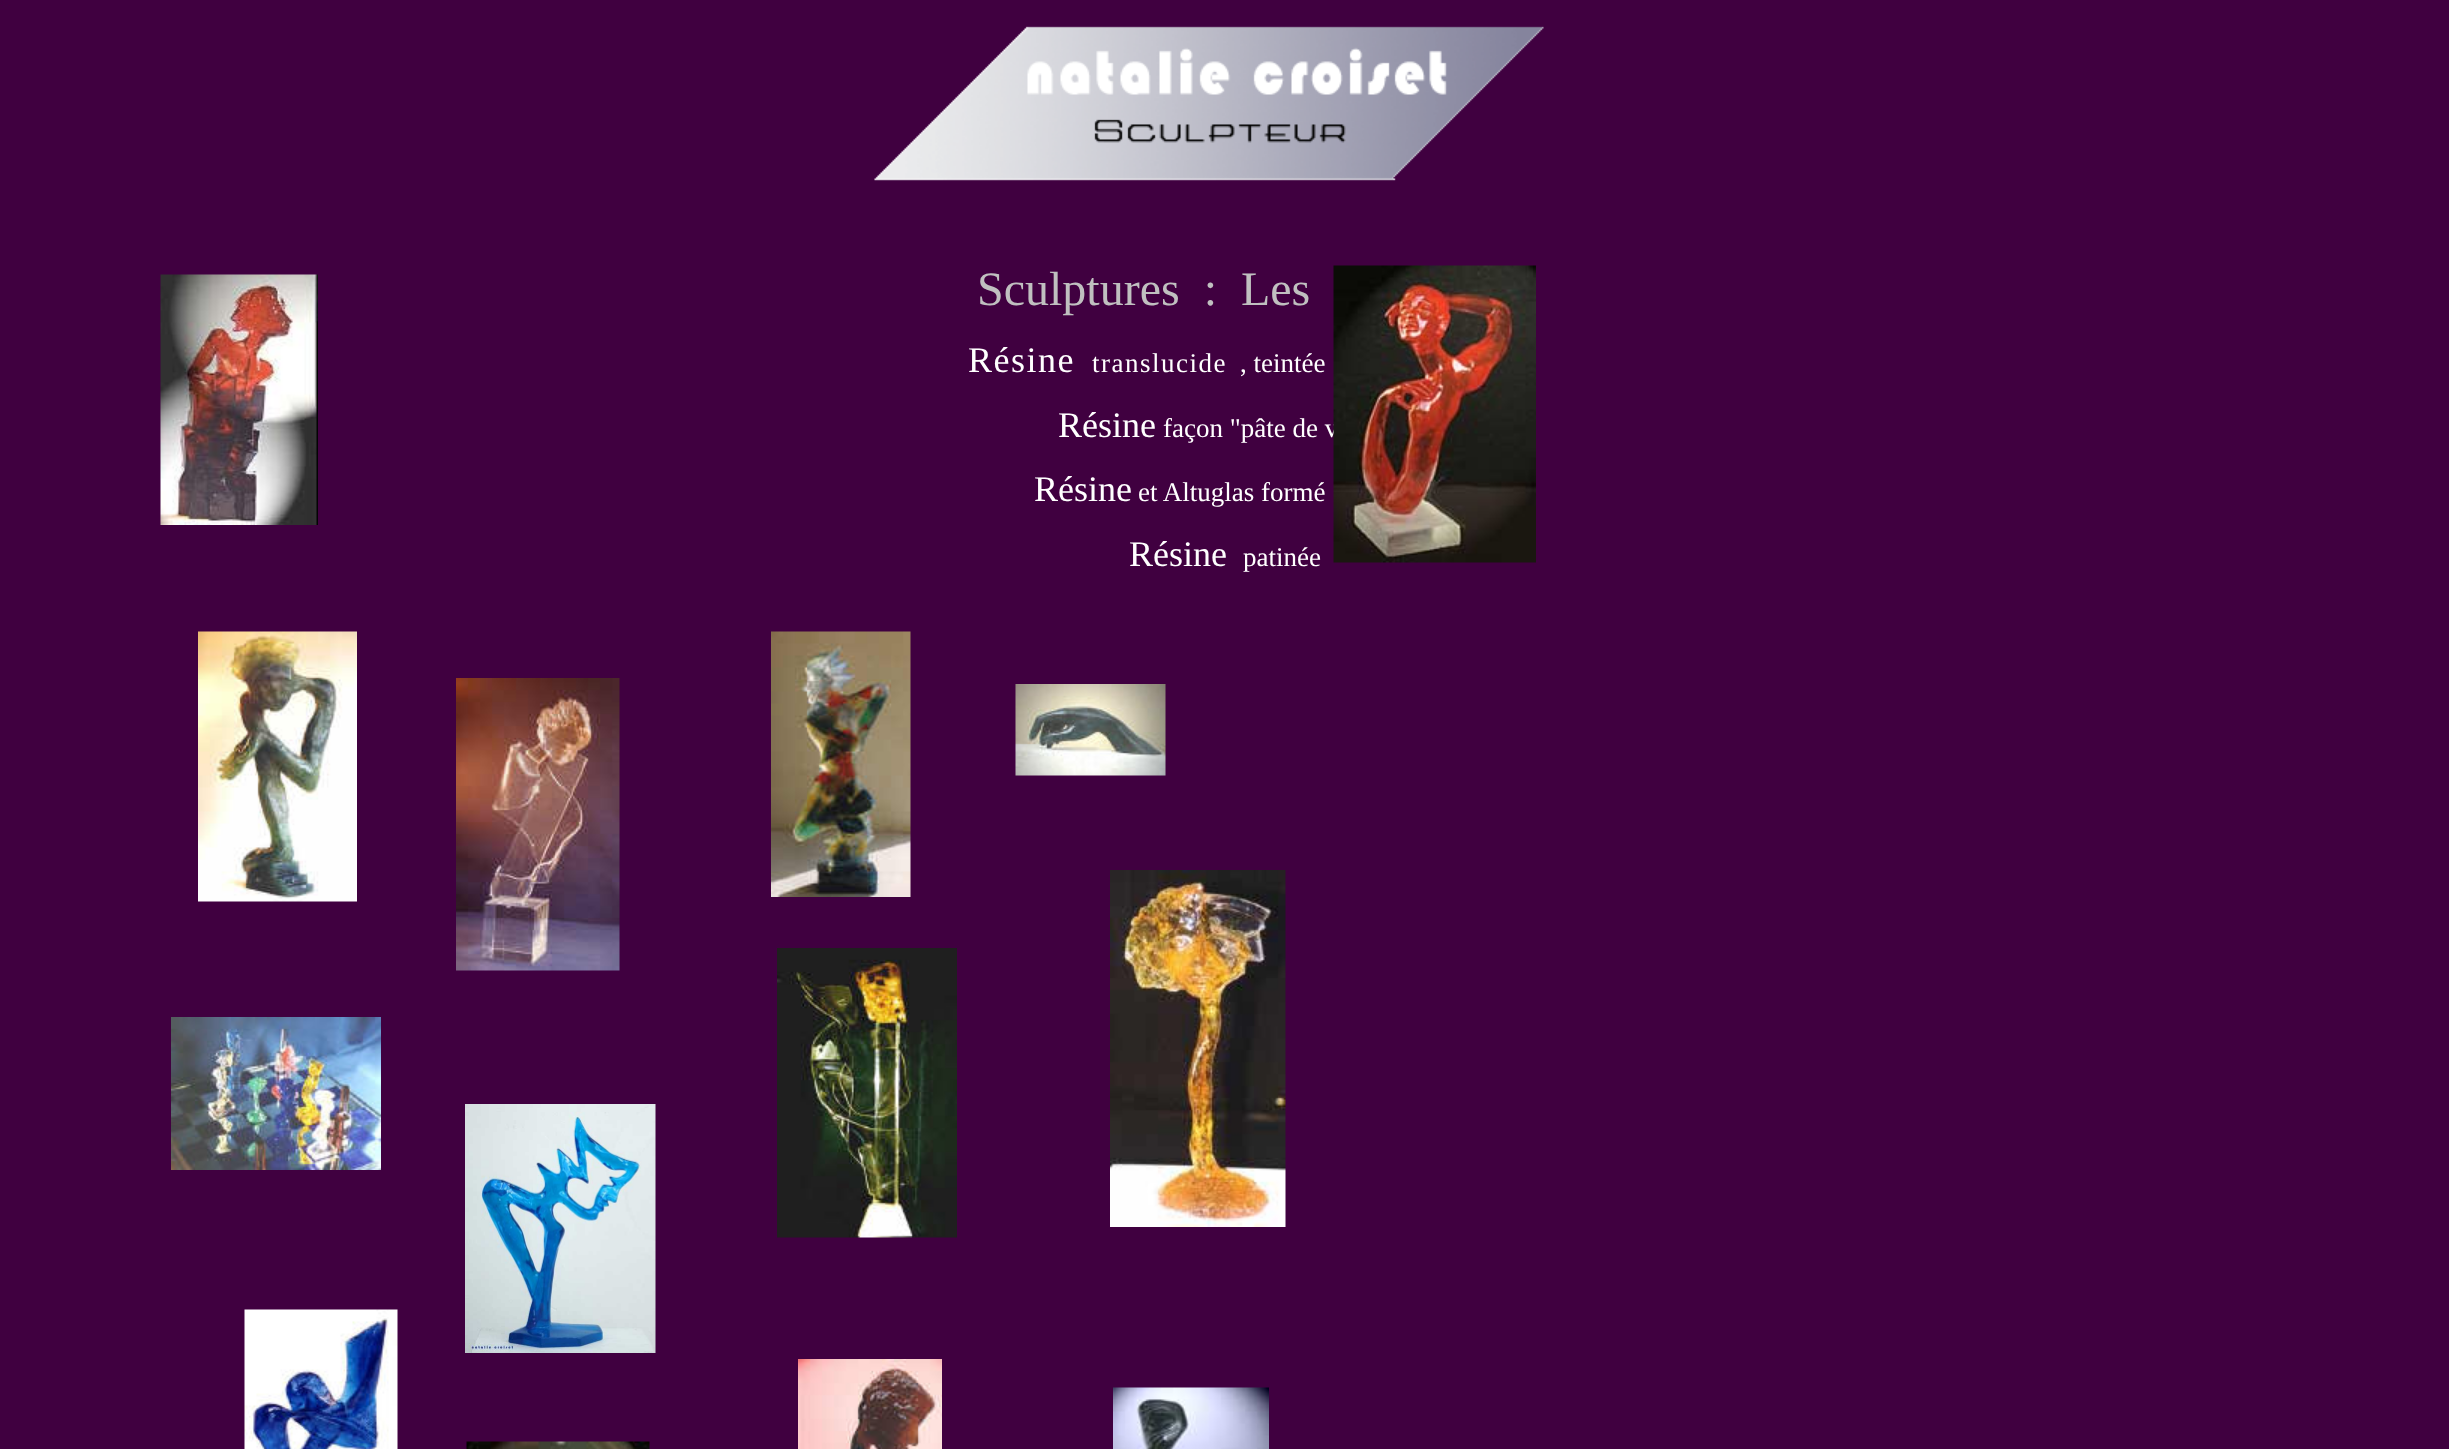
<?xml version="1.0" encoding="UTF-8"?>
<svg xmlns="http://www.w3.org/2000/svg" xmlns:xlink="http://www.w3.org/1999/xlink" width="2449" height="1449">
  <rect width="100%" height="100%" fill="#400040" />
  <image x="874" y="26" width="670" height="155" xlink:href="image1.png" />
  <image x="160" y="274" width="158" height="251" xlink:href="image3.png" />
  <image x="198" y="631" width="159" height="271" xlink:href="image4.png" />
  <image x="456" y="678" width="164" height="293" xlink:href="image5.png" />
  <image x="771" y="631" width="140" height="266" xlink:href="image6.png" />
  <image x="1015" y="684" width="151" height="92" xlink:href="image7.png" />
  <image x="171" y="1017" width="210" height="153" xlink:href="image8.png" />
  <image x="465" y="1104" width="191" height="249" xlink:href="image9.png" />
  <image x="777" y="948" width="180" height="290" xlink:href="image10.png" />
  <image x="1110" y="870" width="176" height="357" xlink:href="image11.png" />
  <image x="244" y="1309" width="154" height="140" xlink:href="image12.png" />
  <image x="466" y="1441" width="184" height="8" xlink:href="image13.png" />
  <image x="798" y="1359" width="144" height="90" xlink:href="image14.png" />
  <image x="1113" y="1387" width="156" height="62" xlink:href="image15.png" />
  <text x="977" y="305" style="font-family: Liberation Serif; font-size: 48px; fill: #c0c0c0" xml:space="preserve">Sculptures  :  Les</text>
  <text x="968" y="372" style="font-family: Liberation Serif; font-size: 36px; letter-spacing: 1.5px; fill: #ffffff">Résine</text>
  <text x="1092" y="372" style="font-family: Liberation Serif; font-size: 27px; letter-spacing: 1.5px; fill: #ffffff">translucide</text>
  <text x="1240" y="372" style="font-family: Liberation Serif; font-size: 27px; fill: #ffffff">, teintée</text>
  <text x="1058" y="437" style="font-family: Liberation Serif; font-size: 36px; fill: #ffffff">Résine</text>
  <text x="1163" y="437" style="font-family: Liberation Serif; font-size: 27px; fill: #ffffff">façon "pâte de v</text>
  <image x="1333" y="265" width="203" height="298" xlink:href="image2.png" />
  <text x="1034" y="501" style="font-family: Liberation Serif; font-size: 36px; fill: #ffffff">Résine</text>
  <text x="1138" y="501" style="font-family: Liberation Serif; font-size: 27px; fill: #ffffff">et Altuglas formé</text>
  <text x="1129" y="566" style="font-family: Liberation Serif; font-size: 36px; fill: #ffffff">Résine</text>
  <text x="1243" y="566" style="font-family: Liberation Serif; font-size: 27px; fill: #ffffff">patinée</text>
</svg>
